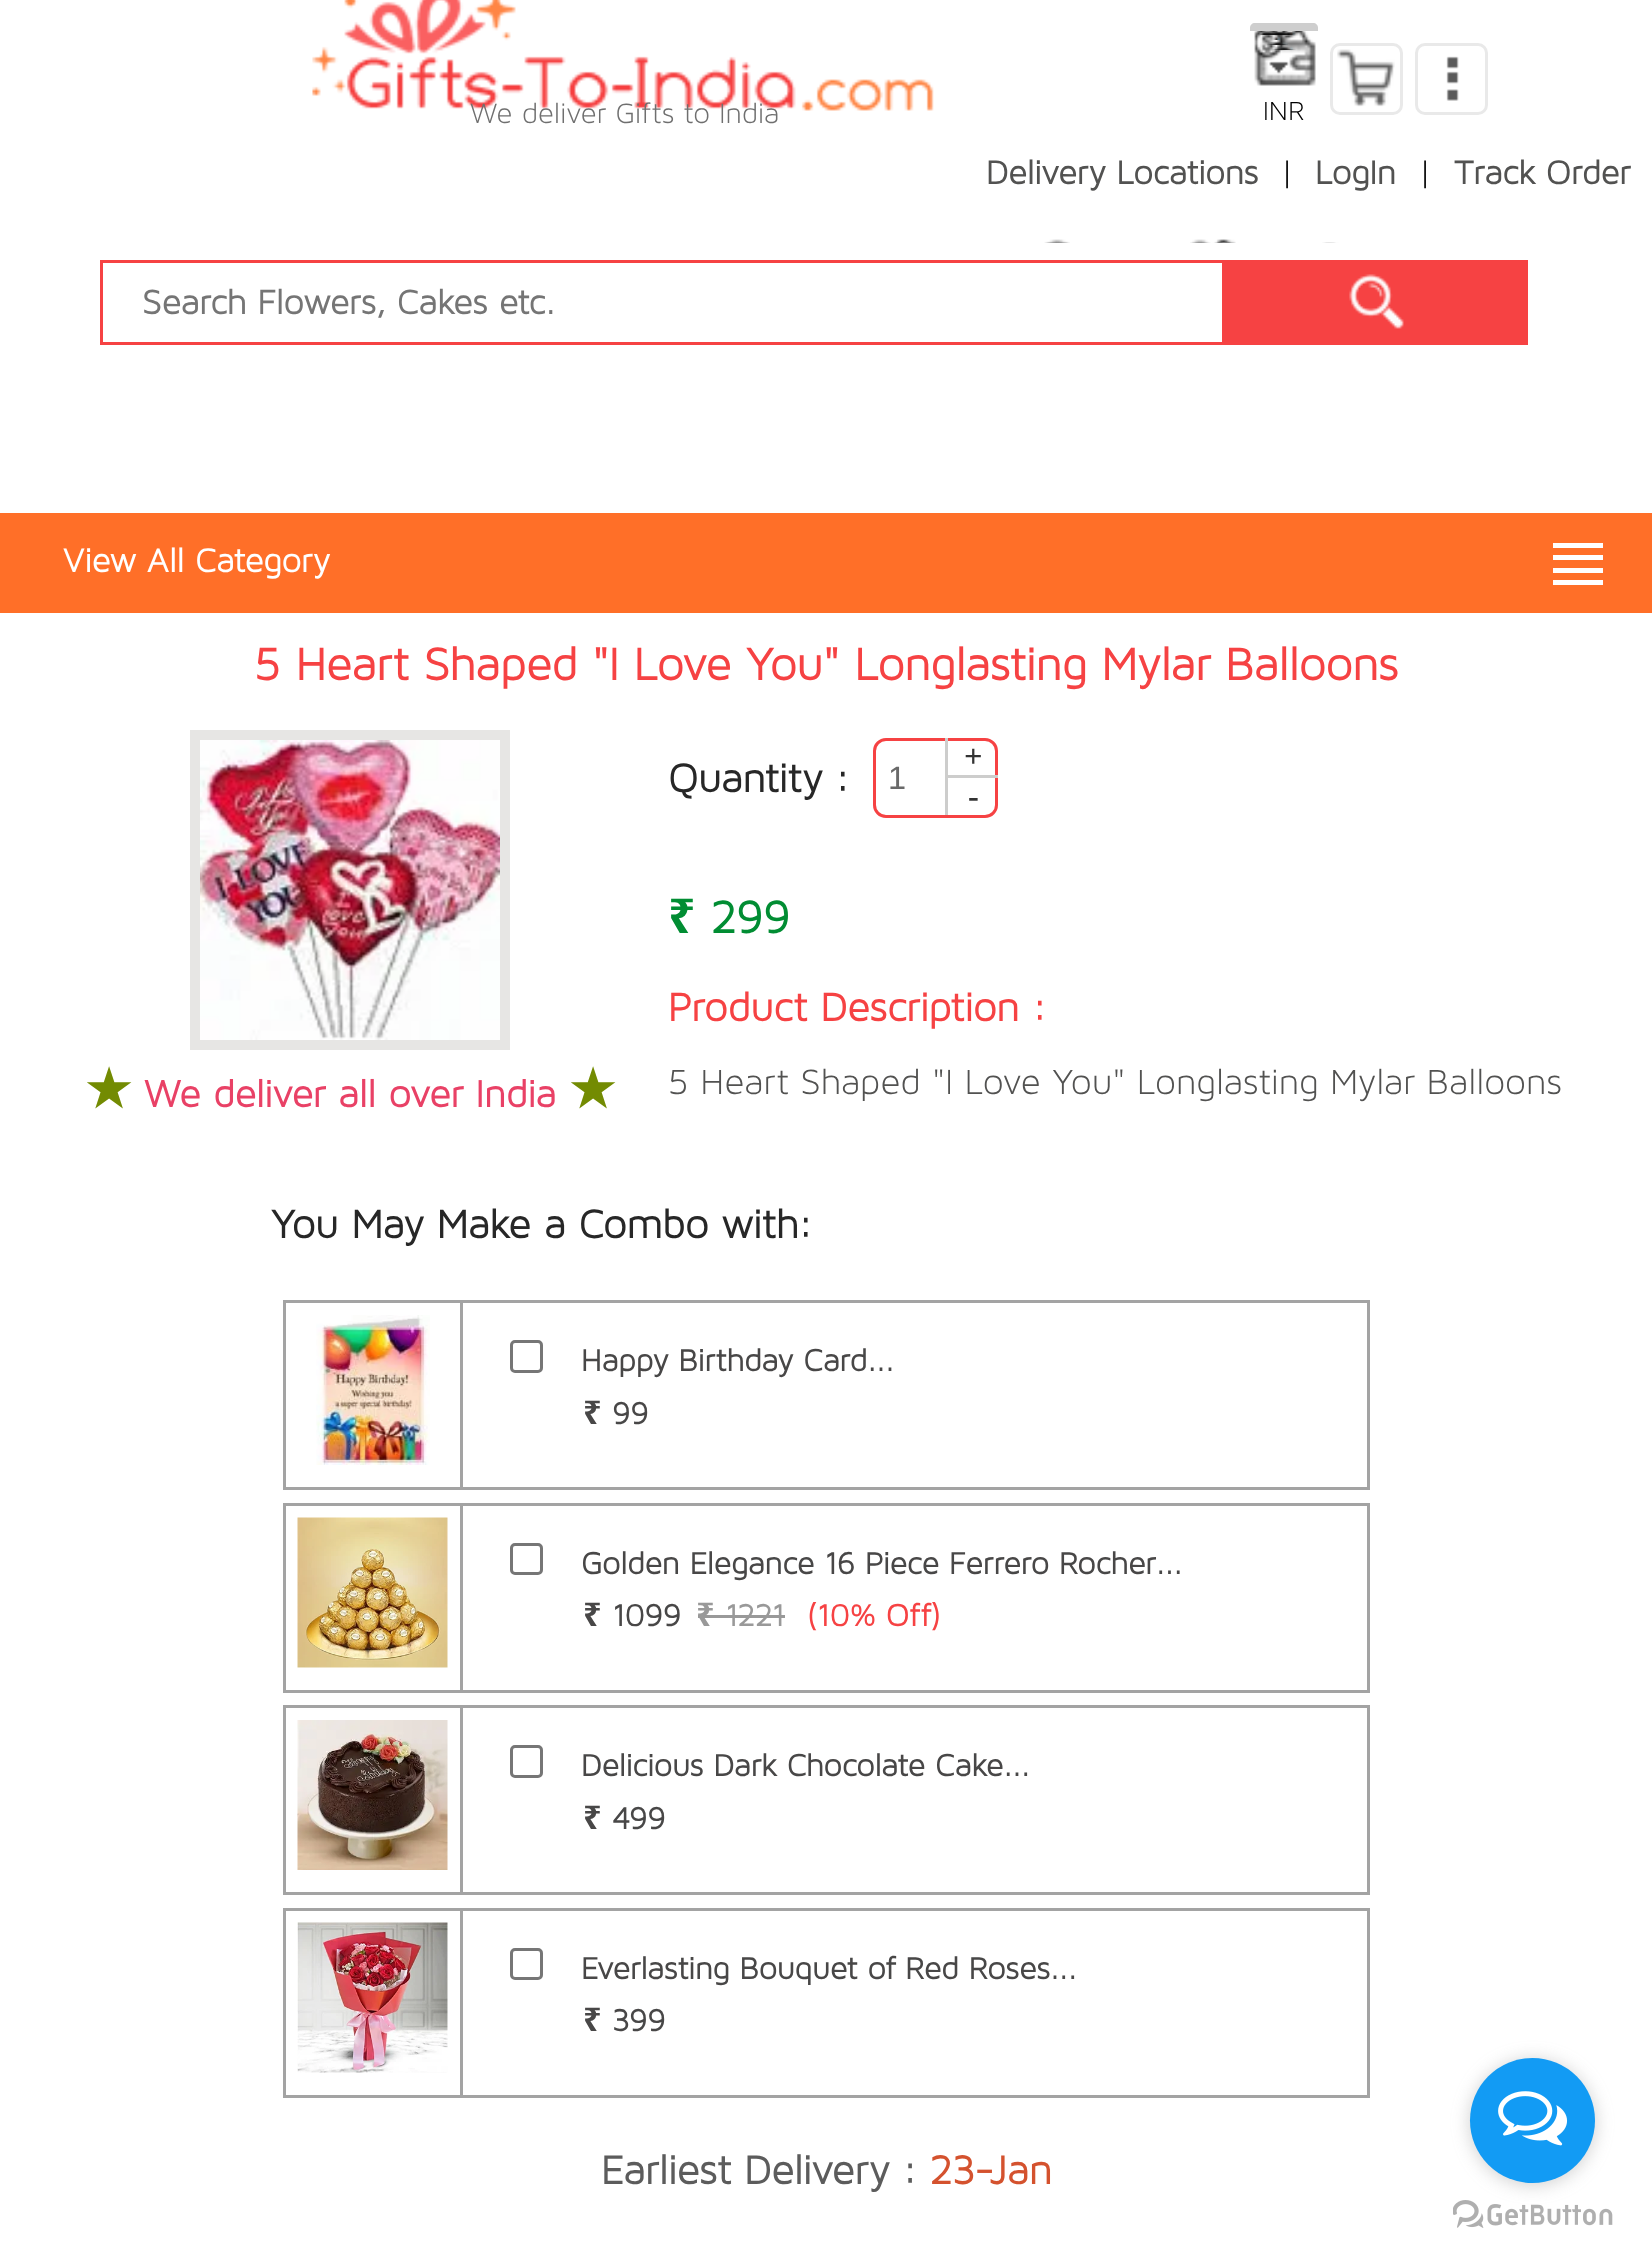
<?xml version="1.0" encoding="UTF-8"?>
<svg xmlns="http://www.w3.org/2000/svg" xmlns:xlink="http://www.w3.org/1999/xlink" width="1652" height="2262">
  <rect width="100%" height="100%" fill="#ffffff" />
  <image x="312" y="0" width="622" height="111" xlink:href="image1.png" />
  <image x="1254" y="31" width="62" height="55" xlink:href="image2.png" />
  <path d="M 1255 23 h 58 c 3 0 5 2 5 5 v 3 h -68 v -3 c 0 -3 2 -5 5 -5 z" fill="#cecece" />
  <image x="1259" y="31" width="36" height="4" xlink:href="image3.png" />
  <image x="1272" y="36" width="9" height="4" xlink:href="image4.png" />
  <image x="1267" y="41" width="21" height="4" xlink:href="image5.png" />
  <image x="1272" y="46" width="24" height="4" xlink:href="image6.png" />
  <image x="1337" y="49" width="58" height="58" xlink:href="image7.png" />
  <rect x="1331.5" y="44.5" width="70" height="69" rx="8.5" fill="none" stroke="#e9e9e9" stroke-width="3" />
  <image x="1446" y="56" width="13" height="45" xlink:href="image8.png" />
  <rect x="1416.5" y="44.5" width="70" height="69" rx="8.5" fill="none" stroke="#e9e9e9" stroke-width="3" />
  <image x="1044" y="239" width="26" height="4" xlink:href="image9.png" />
  <image x="1190" y="239" width="46" height="4" xlink:href="image10.png" />
  <image x="1322" y="242" width="58" height="1" xlink:href="image11.png" />
  <rect x="101.5" y="261.5" width="1122" height="82" fill="none" stroke="#f64243" stroke-width="3" />
  <rect x="1225" y="260" width="303" height="85" fill="#f64243" />
  <image x="1349" y="274" width="55" height="55" xlink:href="image12.png" />
  <rect y="513" width="1652" height="100" fill="#ff6f28" />
  <rect x="1553" y="543" width="50" height="5" fill="#ffffff" />
  <rect x="1553" y="555" width="50" height="5" fill="#ffffff" />
  <rect x="1553" y="568" width="50" height="5" fill="#ffffff" />
  <rect x="1553" y="580" width="50" height="5" fill="#ffffff" />
  <rect x="195" y="735" width="310" height="310" fill="none" stroke="#e7e6e4" stroke-width="10" />
  <image x="200" y="740" width="300" height="300" xlink:href="image13.png" />
  <rect x="874.5" y="739.5" width="122" height="77" rx="11.5" fill="none" stroke="#f64243" stroke-width="3" />
  <rect x="945" y="775" width="53" height="3" fill="#cdcdcc" />
  <rect x="945" y="738" width="3" height="77" fill="#cdcdcc" />
  <rect x="284.5" y="1301.5" width="1084" height="187" fill="none" stroke="#a3a3a3" stroke-width="3" />
  <rect x="460" y="1303" width="3" height="185" fill="#a3a3a3" />
  <image x="316" y="1315" width="114" height="150" xlink:href="image14.png" />
  <rect x="511.5" y="1341.5" width="30" height="30" rx="3.5" fill="none" stroke="#767676" stroke-width="3" />
  <rect x="284.5" y="1504.5" width="1084" height="187" fill="none" stroke="#a3a3a3" stroke-width="3" />
  <rect x="460" y="1505" width="3" height="185" fill="#a3a3a3" />
  <image x="297" y="1517" width="151" height="151" xlink:href="image15.png" />
  <rect x="511.5" y="1544.5" width="30" height="29" rx="3.5" fill="none" stroke="#767676" stroke-width="3" />
  <rect x="698" y="1615" width="87" height="3" fill="#999999" />
  <rect x="284.5" y="1706.5" width="1084" height="187" fill="none" stroke="#a3a3a3" stroke-width="3" />
  <rect x="460" y="1708" width="3" height="185" fill="#a3a3a3" />
  <image x="297" y="1720" width="151" height="150" xlink:href="image16.png" />
  <rect x="511.5" y="1746.5" width="30" height="30" rx="3.5" fill="none" stroke="#767676" stroke-width="3" />
  <rect x="284.5" y="1909.5" width="1084" height="187" fill="none" stroke="#a3a3a3" stroke-width="3" />
  <rect x="460" y="1910" width="3" height="185" fill="#a3a3a3" />
  <image x="297" y="1922" width="151" height="151" xlink:href="image17.png" />
  <rect x="511.5" y="1949.5" width="30" height="29" rx="3.5" fill="none" stroke="#767676" stroke-width="3" />
  <image x="1453" y="2200" width="160" height="28" xlink:href="image19.png" />
  <rect x="1470" y="2060" width="125" height="125" rx="62.5" fill="#888888" fill-opacity="0.4" filter="blur(9px)" />
  <circle cx="1532.5" cy="2120.5" r="62.5" fill="#129bf4" />
  <image x="1498" y="2091" width="70" height="55" xlink:href="image18.png" />
  <text x="470" y="123" style="font-family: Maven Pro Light; font-size: 30px; font-weight: 300; fill: #6f6f6f">We deliver Gifts to India</text>
  <text x="1263" y="120" style="font-family: Maven Pro Light; font-size: 28px; font-weight: 300; fill: #000000">INR</text>
  <text x="986" y="184" style="font-family: Maven Pro Light; font-size: 35px; font-weight: bold; fill: #525251">Delivery Locations</text>
  <text x="1281" y="184" style="font-family: Maven Pro Light; font-size: 35px; font-weight: 300; fill: #000000">|</text>
  <text x="1315" y="184" style="font-family: Maven Pro Light; font-size: 35px; font-weight: bold; fill: #525251">LogIn</text>
  <text x="1419" y="184" style="font-family: Maven Pro Light; font-size: 35px; font-weight: 300; fill: #000000">|</text>
  <text x="1454" y="184" style="font-family: Maven Pro Light; font-size: 35px; font-weight: bold; fill: #525251">Track Order</text>
  <text x="142" y="314" style="font-family: Maven Pro Light; font-size: 36px; font-weight: bold; fill: #757575">Search Flowers, Cakes etc.</text>
  <text x="63" y="572" style="font-family: Maven Pro Light; font-size: 35px; font-weight: bold; fill: #ffffff">View All Category</text>
  <text x="254" y="680" style="font-family: Maven Pro Light; font-size: 48px; font-weight: bold; fill: #f64243">5 Heart Shaped "I Love You" Longlasting Mylar Balloons</text>
  <text x="85" y="1107" style="font-family: DejaVu Sans; font-size: 52px; font-weight: bold; fill: #738b02">★</text>
  <text x="144" y="1107" style="font-family: Maven Pro Light; font-size: 40px; font-weight: bold; fill: #e94166">We deliver all over India</text>
  <text x="569" y="1107" style="font-family: DejaVu Sans; font-size: 52px; font-weight: bold; fill: #738b02">★</text>
  <text x="668" y="792" style="font-family: Maven Pro Light; font-size: 42px; font-weight: bold; fill: #272727">Quantity :</text>
  <text x="888" y="789" style="font-family: Liberation Sans; font-size: 32.5px; fill: #696969">1</text>
  <text x="964" y="767" style="font-family: Liberation Serif; font-size: 32.5px; font-weight: bold; fill: #333333">+</text>
  <text x="968" y="807" style="font-family: Liberation Serif; font-size: 32.5px; font-weight: bold; fill: #333333">-</text>
  <text x="668" y="933" style="font-family: Noto Sans; font-size: 48px; font-weight: bold; fill: #018d33">₹</text>
  <text x="710" y="933" style="font-family: Maven Pro Light; font-size: 48px; font-weight: bold; fill: #018d33">299</text>
  <text x="668" y="1021" style="font-family: Maven Pro Light; font-size: 42px; font-weight: bold; fill: #f64243">Product Description :</text>
  <text x="668" y="1094" style="font-family: Maven Pro Light; font-size: 37.5px; font-weight: 300; fill: #525251">5 Heart Shaped "I Love You" Longlasting Mylar Balloons</text>
  <text x="271" y="1238" style="font-family: Maven Pro Light; font-size: 42px; font-weight: bold; fill: #272727">You May Make a Combo with:</text>
  <text x="581" y="1371" style="font-family: Maven Pro Light; font-size: 32.5px; font-weight: bold; fill: #484747">Happy Birthday Card...</text>
  <text x="583" y="1424" style="font-family: Noto Sans; font-size: 32.5px; font-weight: bold; fill: #484747">₹</text>
  <text x="612" y="1424" style="font-family: Maven Pro Light; font-size: 32.5px; font-weight: bold; fill: #484747">99</text>
  <text x="581" y="1574" style="font-family: Maven Pro Light; font-size: 32.5px; font-weight: bold; fill: #484747">Golden Elegance 16 Piece Ferrero Rocher...</text>
  <text x="583" y="1626" style="font-family: Noto Sans; font-size: 32.5px; font-weight: bold; fill: #484747">₹</text>
  <text x="612" y="1626" style="font-family: Maven Pro Light; font-size: 32.5px; font-weight: bold; fill: #484747">1099</text>
  <text x="696" y="1626" style="font-family: Noto Sans; font-size: 32.5px; font-weight: bold; fill: #999999">₹</text>
  <text x="725" y="1626" style="font-family: Maven Pro Light; font-size: 32.5px; font-weight: bold; fill: #999999">1221</text>
  <text x="807" y="1626" style="font-family: Maven Pro Light; font-size: 32.5px; font-weight: bold; fill: #f64243">(10% Off)</text>
  <text x="581" y="1776" style="font-family: Maven Pro Light; font-size: 32.5px; font-weight: bold; fill: #484747">Delicious Dark Chocolate Cake...</text>
  <text x="583" y="1829" style="font-family: Noto Sans; font-size: 32.5px; font-weight: bold; fill: #484747">₹</text>
  <text x="612" y="1829" style="font-family: Maven Pro Light; font-size: 32.5px; font-weight: bold; fill: #484747">499</text>
  <text x="581" y="1979" style="font-family: Maven Pro Light; font-size: 32.5px; font-weight: bold; fill: #484747">Everlasting Bouquet of Red Roses...</text>
  <text x="583" y="2031" style="font-family: Noto Sans; font-size: 32.5px; font-weight: bold; fill: #484747">₹</text>
  <text x="612" y="2031" style="font-family: Maven Pro Light; font-size: 32.5px; font-weight: bold; fill: #484747">399</text>
  <text x="601" y="2184" style="font-family: Maven Pro Light; font-size: 42.5px; font-weight: bold; fill: #5c5c5c">Earliest Delivery :</text>
  <text x="929" y="2184" style="font-family: Maven Pro Light; font-size: 42.5px; font-weight: bold; fill: #d4522e">23-Jan</text>
</svg>
